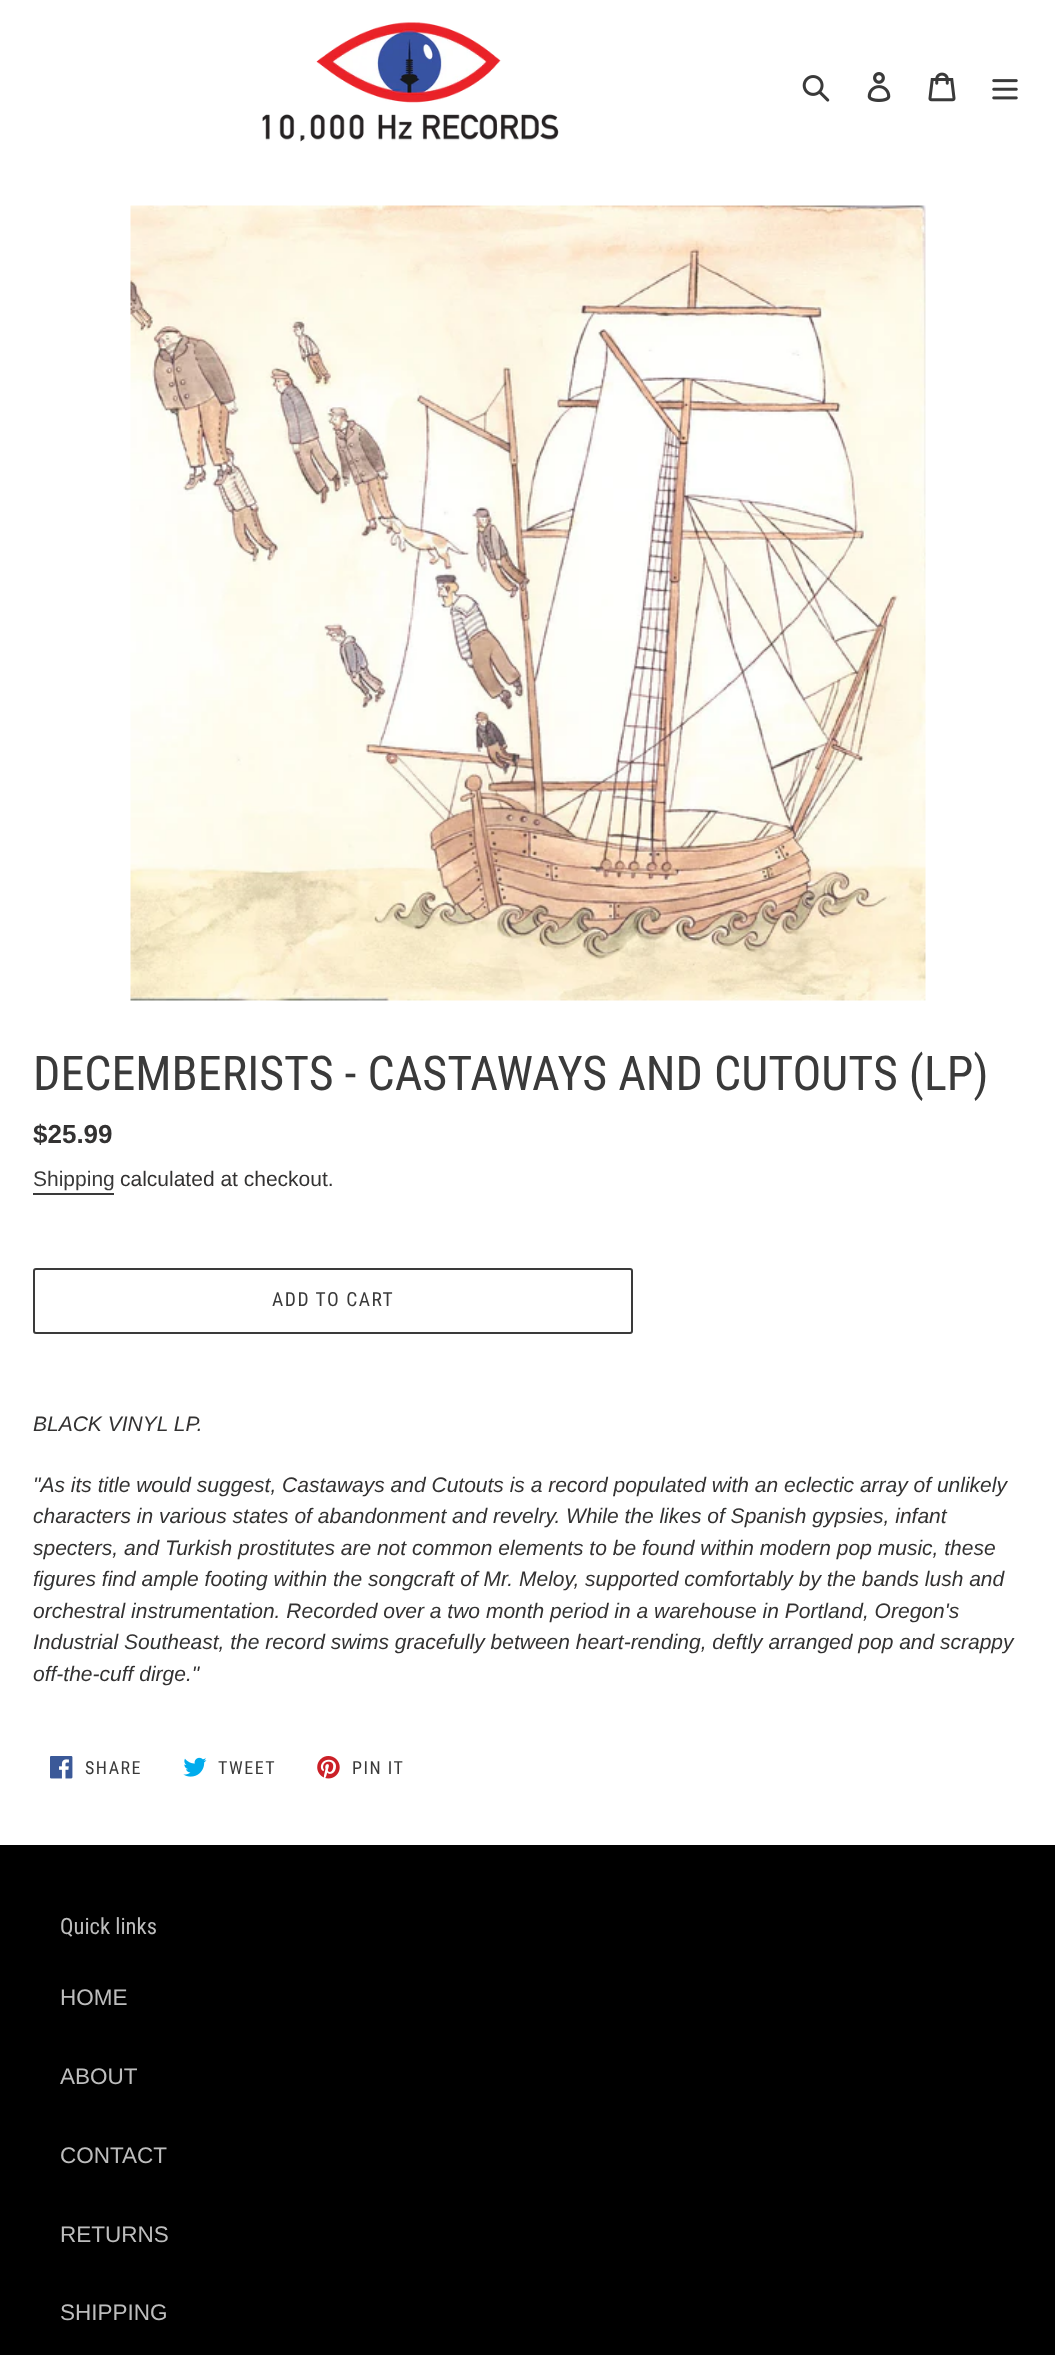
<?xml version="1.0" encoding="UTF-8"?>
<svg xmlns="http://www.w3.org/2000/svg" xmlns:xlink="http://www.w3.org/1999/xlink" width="1055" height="2355">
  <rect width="100%" height="100%" fill="#ffffff" />
  <image x="262" y="22" width="297" height="120" xlink:href="image1.png" />
  <image x="802" y="75" width="28" height="27" xlink:href="image2.png" />
  <image x="867" y="72" width="24" height="30" xlink:href="image3.png" />
  <image x="928" y="72" width="28" height="30" xlink:href="image4.png" />
  <image x="992" y="79" width="26" height="21" xlink:href="image5.png" />
  <image x="130" y="205" width="796" height="796" xlink:href="image6.png" />
  <rect x="33" y="1193" width="81" height="2" fill="#3a3a3a" />
  <rect x="34" y="1269" width="598" height="64" rx="2" fill="none" stroke="#3a3a3a" stroke-width="2" />
  <image x="50" y="1756" width="23" height="23" xlink:href="image7.png" />
  <image x="183" y="1757" width="24" height="20" xlink:href="image8.png" />
  <image x="317" y="1756" width="23" height="23" xlink:href="image9.png" />
  <rect y="1845" width="1055" height="510" fill="#000000" />
  <text x="33" y="1090" style="font-family: Roboto Condensed; font-size: 48px; fill: #3a3a3a">DECEMBERISTS - CASTAWAYS AND CUTOUTS (LP)</text>
  <text x="33" y="1143" style="font-family: Liberation Sans; font-size: 26px; font-weight: bold; fill: #333232">$25.99</text>
  <text x="33" y="1186" style="font-family: Liberation Sans; font-size: 21px; fill: #3a3a3a">Shipping</text>
  <text x="120" y="1186" style="font-family: Liberation Sans; font-size: 21px; fill: #333232">calculated at checkout.</text>
  <text x="272" y="1306" style="font-family: Roboto Condensed; font-size: 19.5px; letter-spacing: 1.5px; fill: #3a3a3a">ADD TO CART</text>
  <text x="33" y="1431" style="font-family: Liberation Sans; font-size: 21px; font-style: italic; fill: #333232">BLACK VINYL LP.</text>
  <text x="33" y="1492" style="font-family: Liberation Sans; font-size: 21px; font-style: italic; fill: #333232">"As its title would suggest, Castaways and Cutouts is a record populated with an eclectic array of unlikely</text>
  <text x="33" y="1523" style="font-family: Liberation Sans; font-size: 21px; font-style: italic; fill: #333232">characters in various states of abandonment and revelry. While the likes of Spanish gypsies, infant</text>
  <text x="33" y="1555" style="font-family: Liberation Sans; font-size: 21px; font-style: italic; fill: #333232">specters, and Turkish prostitutes are not common elements to be found within modern pop music, these</text>
  <text x="33" y="1586" style="font-family: Liberation Sans; font-size: 21px; font-style: italic; fill: #333232">figures find ample footing within the songcraft of Mr. Meloy, supported comfortably by the bands lush and</text>
  <text x="33" y="1618" style="font-family: Liberation Sans; font-size: 21px; font-style: italic; fill: #333232">orchestral instrumentation. Recorded over a two month period in a warehouse in Portland, Oregon's</text>
  <text x="33" y="1649" style="font-family: Liberation Sans; font-size: 21px; font-style: italic; fill: #333232">Industrial Southeast, the record swims gracefully between heart-rending, deftly arranged pop and scrappy</text>
  <text x="33" y="1681" style="font-family: Liberation Sans; font-size: 21px; font-style: italic; fill: #333232">off-the-cuff dirge."</text>
  <text x="85" y="1774" style="font-family: Roboto Condensed; font-size: 18px; letter-spacing: 1.5px; fill: #3a3a3a">SHARE</text>
  <text x="218" y="1774" style="font-family: Roboto Condensed; font-size: 18px; letter-spacing: 1.5px; fill: #3a3a3a">TWEET</text>
  <text x="352" y="1774" style="font-family: Roboto Condensed; font-size: 18px; letter-spacing: 1.5px; fill: #3a3a3a">PIN IT</text>
  <text x="60" y="1934" style="font-family: Roboto Condensed; font-size: 22.5px; fill: #bdbdbd">Quick links</text>
  <text x="60" y="2005" style="font-family: Liberation Sans; font-size: 22.5px; fill: #bdbdbd">HOME</text>
  <text x="60" y="2084" style="font-family: Liberation Sans; font-size: 22.5px; fill: #bdbdbd">ABOUT</text>
  <text x="60" y="2163" style="font-family: Liberation Sans; font-size: 22.5px; fill: #bdbdbd">CONTACT</text>
  <text x="60" y="2242" style="font-family: Liberation Sans; font-size: 22.5px; fill: #bdbdbd">RETURNS</text>
  <text x="60" y="2320" style="font-family: Liberation Sans; font-size: 22.5px; fill: #bdbdbd">SHIPPING</text>
</svg>
